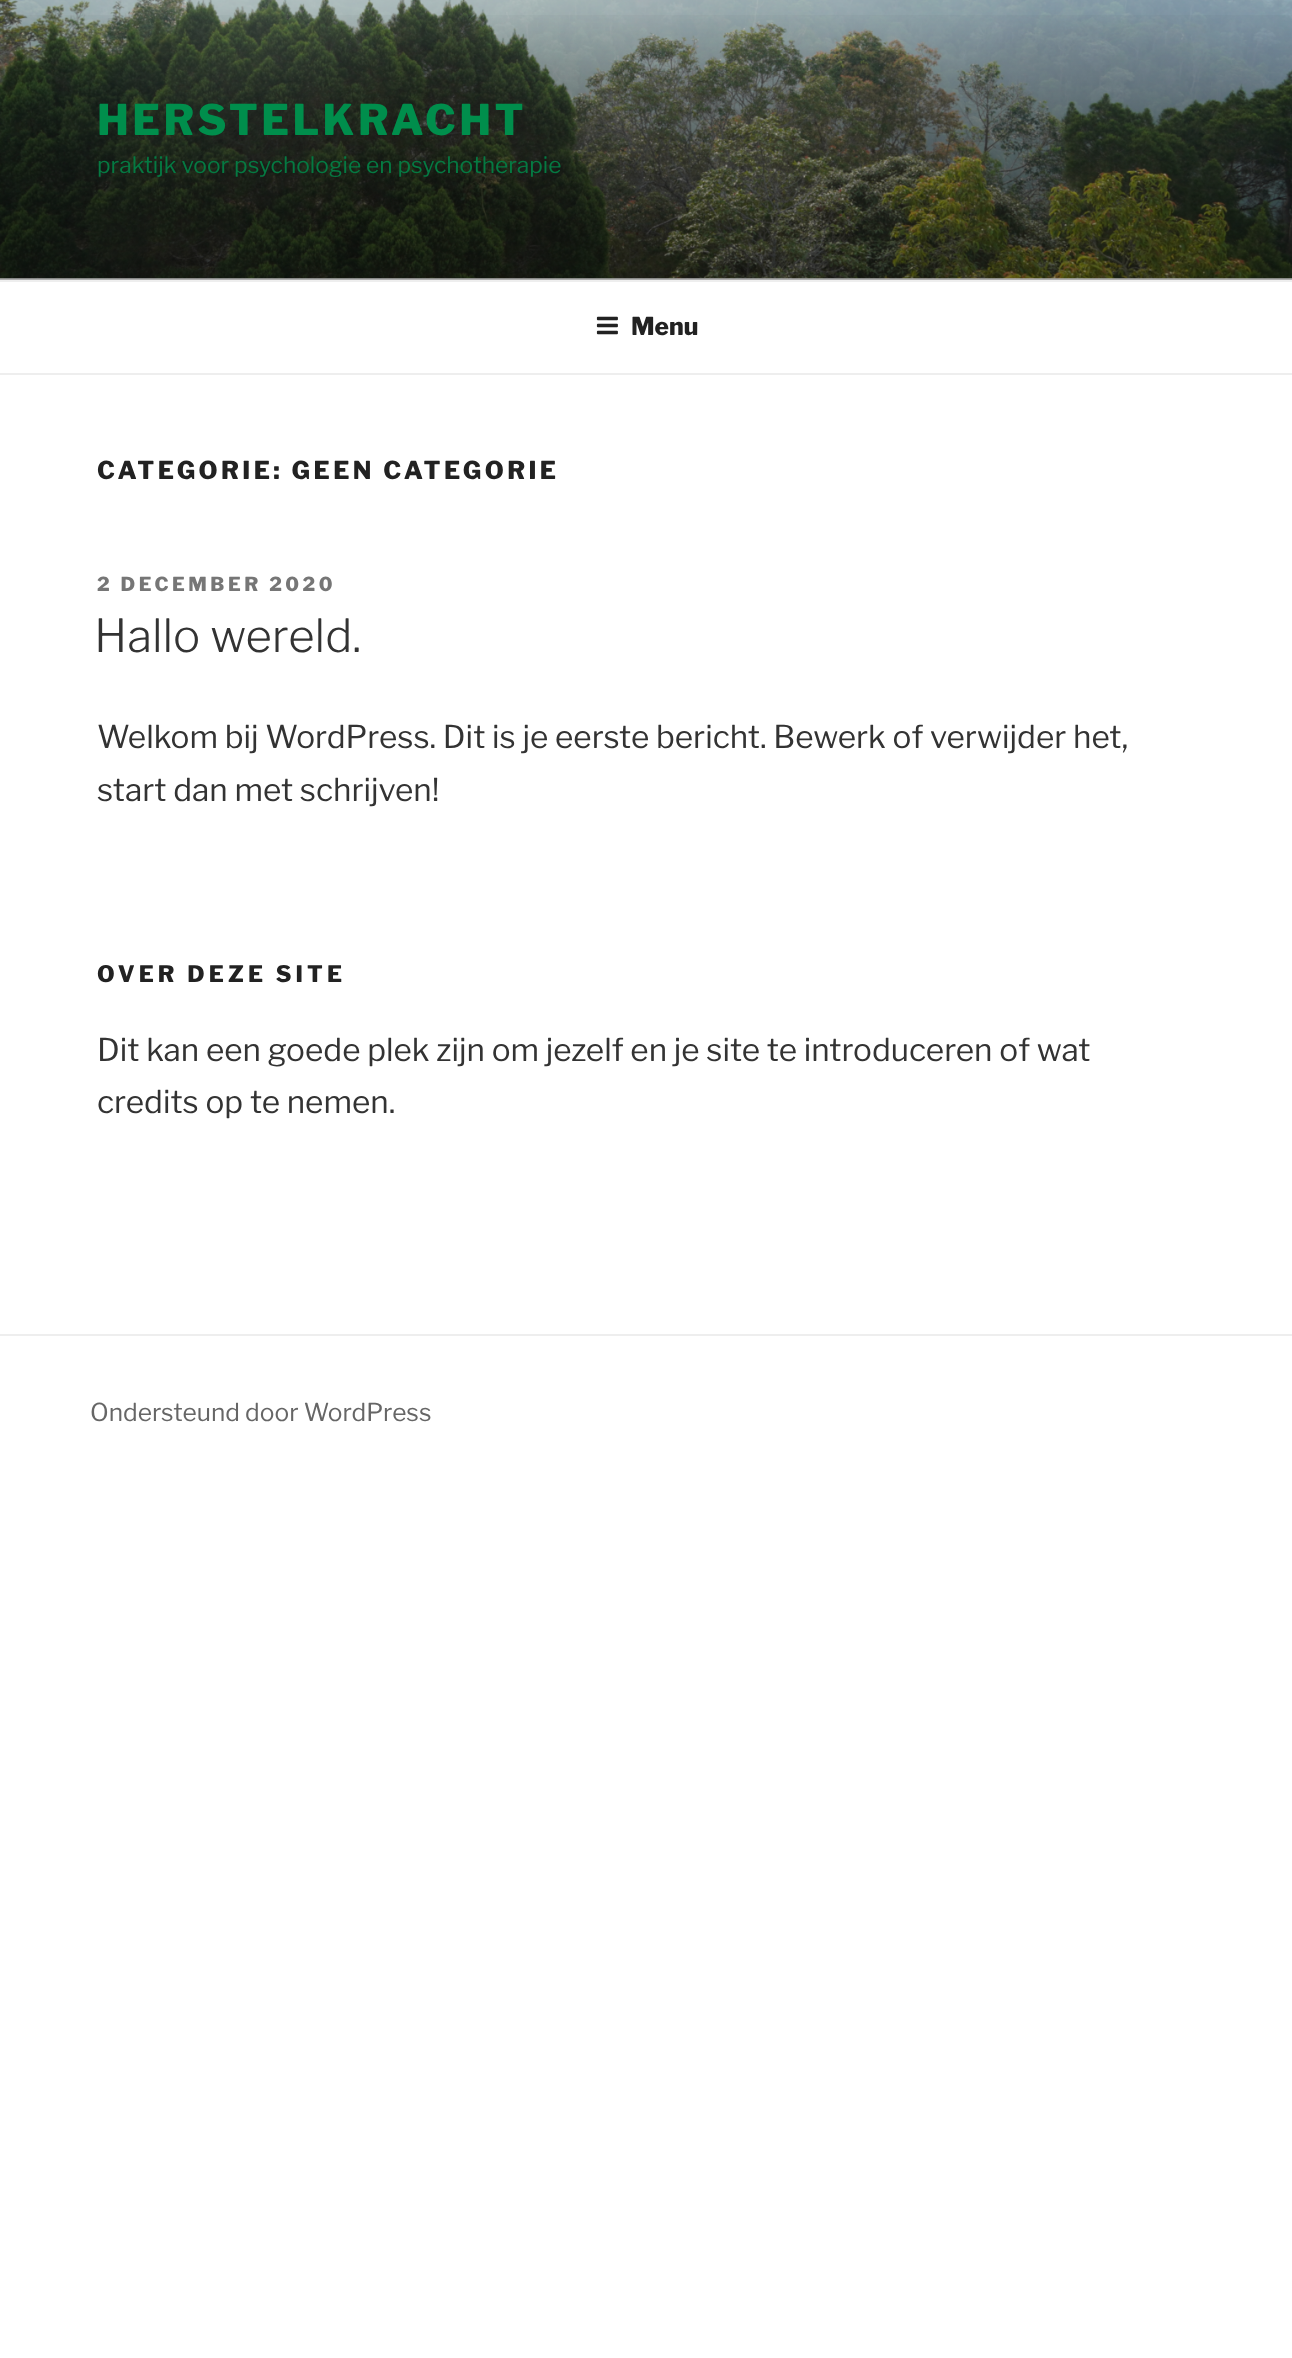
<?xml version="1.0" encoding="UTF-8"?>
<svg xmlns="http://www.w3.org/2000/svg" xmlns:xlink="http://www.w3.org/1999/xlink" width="1292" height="2358">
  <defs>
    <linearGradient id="g1" gradientUnits="userSpaceOnUse" x1="647" y1="0" x2="647" y2="280"><stop offset="0" stop-color="#000000" stop-opacity="0" /><stop offset="0.75" stop-color="#000000" stop-opacity="0.3" /><stop offset="1" stop-color="#000000" stop-opacity="0.3" /></linearGradient>
  </defs>
  <rect width="100%" height="100%" fill="#ffffff" />
  <rect y="278" width="1292" height="2" fill="#fafafa" />
  <image x="0" y="0" width="1292" height="279" xlink:href="image1.png" />
  <rect y="15" width="1292" height="265" fill="url(#g1)" />
  <rect y="280" width="1292" height="2" fill="#eeeeee" />
  <rect y="373" width="1292" height="2" fill="#eeeeee" />
  <image x="596" y="316" width="22" height="19" xlink:href="image2.png" />
  <rect y="1334" width="1292" height="2" fill="#eeeeee" />
  <text x="97" y="135" style="font-family: Libre Franklin; font-size: 42px; font-weight: 800; letter-spacing: 3.4px; fill: #008e4c">HERSTELKRACHT</text>
  <text x="97" y="173" style="font-family: Libre Franklin; font-size: 22.75px; fill: #057942">praktijk voor psychologie en psychotherapie</text>
  <text x="631" y="335" style="font-family: Libre Franklin; font-size: 24.5px; font-weight: 800; fill: #222222">Menu</text>
  <text x="97" y="479" style="font-family: Libre Franklin; font-size: 24.5px; font-weight: 800; letter-spacing: 3.4px; fill: #222222">CATEGORIE: GEEN CATEGORIE</text>
  <text x="97" y="591" style="font-family: Libre Franklin; font-size: 19.25px; font-weight: 800; letter-spacing: 3.5px; fill: #767676">2 DECEMBER 2020</text>
  <text x="94" y="652" style="font-family: Libre Franklin; font-size: 45.5px; font-weight: 300; fill: #333333">Hallo wereld.</text>
  <text x="97" y="748" style="font-family: Libre Franklin; font-size: 31.5px; fill: #333333">Welkom bij WordPress. Dit is je eerste bericht. Bewerk of verwijder het,</text>
  <text x="97" y="801" style="font-family: Libre Franklin; font-size: 31.5px; fill: #333333">start dan met schrijven!</text>
  <text x="97" y="982" style="font-family: Libre Franklin; font-size: 22.75px; font-weight: 800; letter-spacing: 4.1px; fill: #222222">OVER DEZE SITE</text>
  <text x="97" y="1061" style="font-family: Libre Franklin; font-size: 31.5px; fill: #333333">Dit kan een goede plek zijn om jezelf en je site te introduceren of wat</text>
  <text x="97" y="1113" style="font-family: Libre Franklin; font-size: 31.5px; fill: #333333">credits op te nemen.</text>
  <text x="90" y="1421" style="font-family: Libre Franklin; font-size: 24.5px; fill: #666666">Ondersteund door WordPress</text>
</svg>
